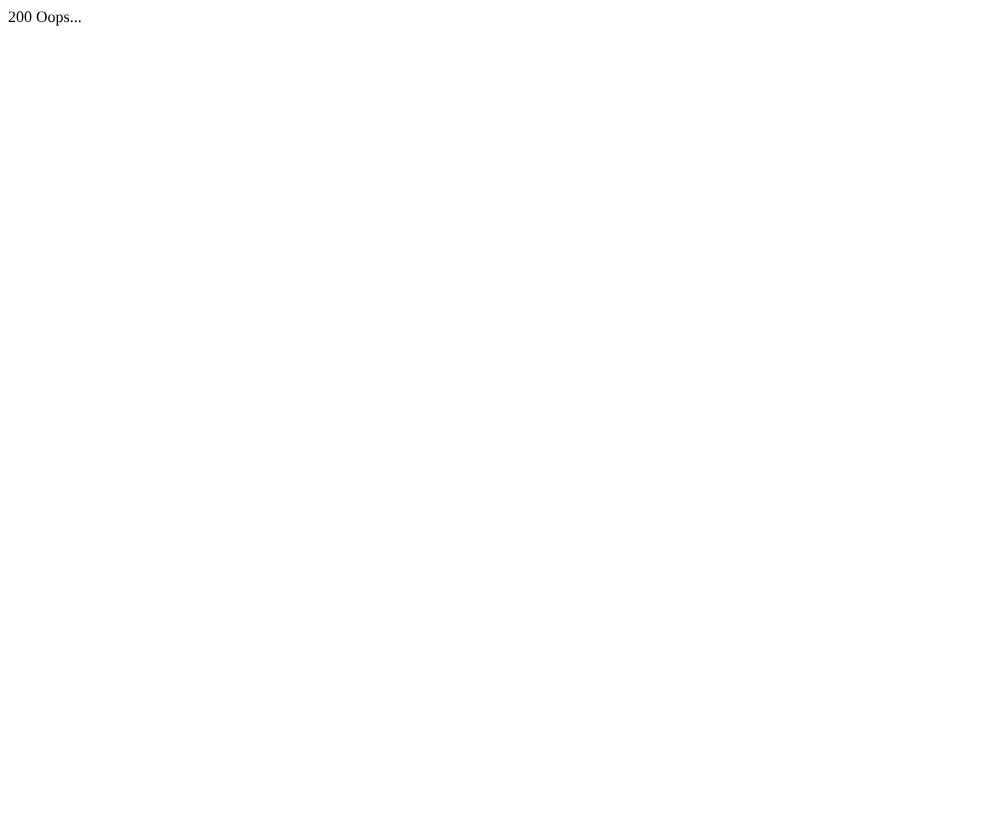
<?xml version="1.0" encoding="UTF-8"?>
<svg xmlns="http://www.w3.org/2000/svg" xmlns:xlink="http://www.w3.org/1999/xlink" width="1008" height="828">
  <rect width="100%" height="100%" fill="#ffffff" />
  <text x="8" y="22" style="font-family: Liberation Serif; font-size: 16px; fill: #000000">200 Oops...</text>
</svg>
